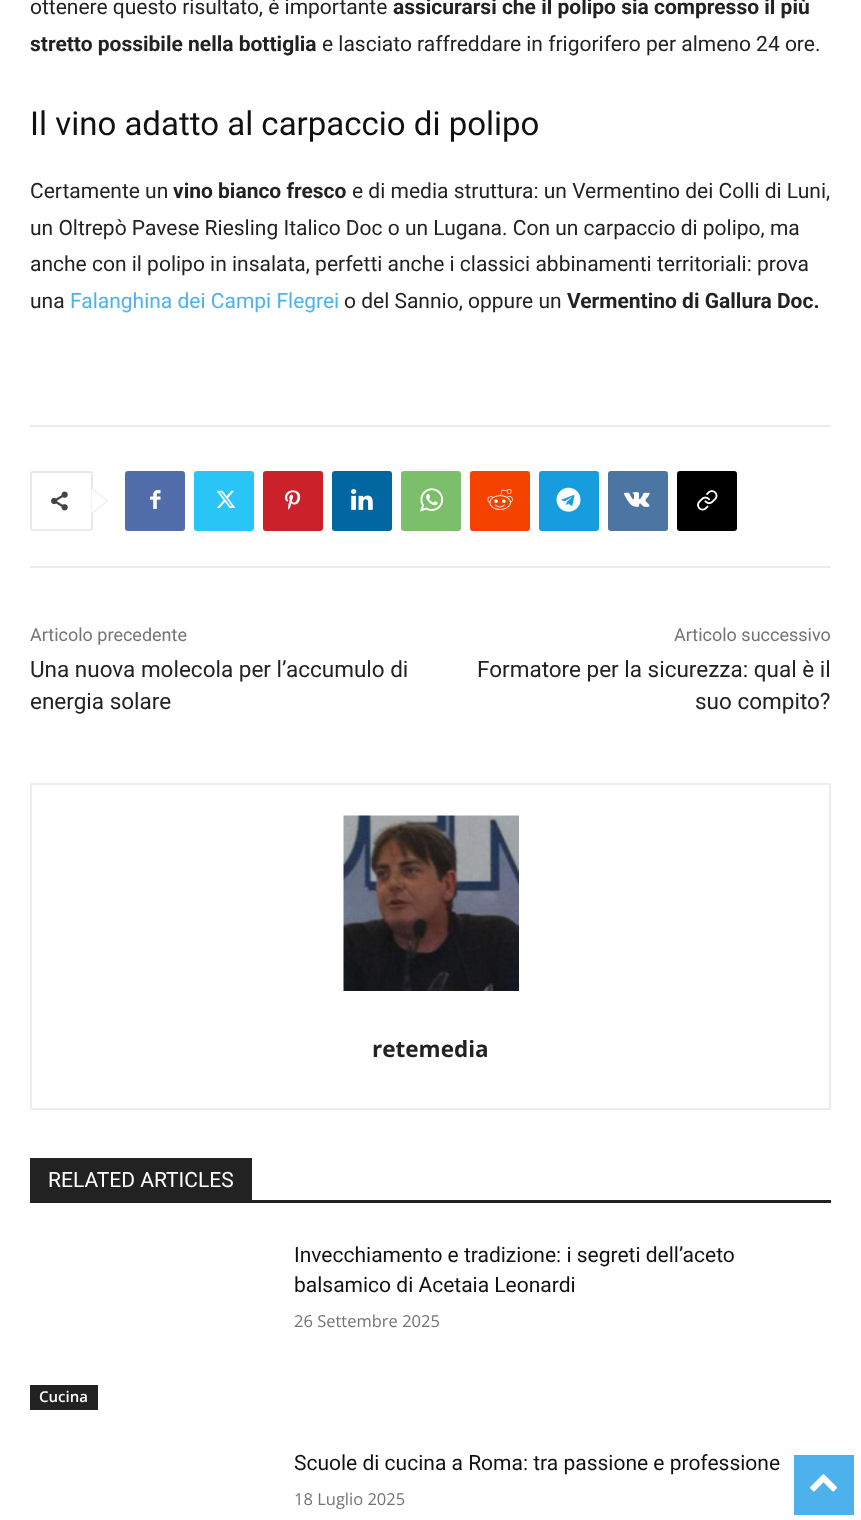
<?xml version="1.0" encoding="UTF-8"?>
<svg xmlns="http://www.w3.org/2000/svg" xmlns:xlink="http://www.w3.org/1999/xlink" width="861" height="1520">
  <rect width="100%" height="100%" fill="#ffffff" />
  <rect x="30" y="425" width="801" height="2" fill="#ebebeb" />
  <rect x="31" y="472" width="61" height="58" rx="2" fill="none" stroke="#e9e9e9" stroke-width="2" />
  <path d="M 91.5 514.5 v -27 l 16.5 13.5 z" fill="#e9e9e9" />
  <image x="51" y="491" width="17" height="20" xlink:href="image1.png" />
  <path d="M 91.5 513 v -24 l 15 12 z" fill="#ffffff" />
  <rect x="125" y="471" width="60" height="60" rx="3" fill="#516eab" />
  <image x="150" y="490" width="11" height="19" xlink:href="image2.png" />
  <rect x="194" y="471" width="60" height="60" rx="3" fill="#29c5f6" />
  <image x="216" y="490" width="20" height="18" xlink:href="image3.png" />
  <rect x="263" y="471" width="60" height="60" rx="3" fill="#ca212a" />
  <image x="285" y="490" width="16" height="20" xlink:href="image4.png" />
  <rect x="332" y="471" width="60" height="60" rx="3" fill="#0266a0" />
  <image x="351" y="489" width="22" height="21" xlink:href="image5.png" />
  <rect x="401" y="471" width="60" height="60" rx="3" fill="#7bbf6a" />
  <image x="420" y="488" width="24" height="24" xlink:href="image6.png" />
  <rect x="470" y="471" width="60" height="60" rx="3" fill="#f54200" />
  <image x="487" y="489" width="26" height="21" xlink:href="image7.png" />
  <rect x="539" y="471" width="60" height="60" rx="3" fill="#179cde" />
  <image x="556" y="487" width="25" height="25" xlink:href="image8.png" />
  <rect x="608" y="471" width="60" height="60" rx="3" fill="#4c75a3" />
  <image x="624" y="492" width="26" height="15" xlink:href="image9.png" />
  <rect x="677" y="471" width="60" height="60" rx="3" fill="#000000" />
  <image x="697" y="490" width="21" height="21" xlink:href="image10.png" />
  <rect x="30" y="566" width="801" height="2" fill="#ebebeb" />
  <rect x="31" y="784" width="799" height="325" fill="none" stroke="#ededed" stroke-width="2" />
  <image x="343" y="815" width="176" height="176" xlink:href="image11.png" />
  <rect x="30" y="1200" width="801" height="3" fill="#222222" />
  <rect x="30" y="1158" width="222" height="42" fill="#222222" />
  <rect x="30" y="1385" width="68" height="25" fill="#222222" />
  <rect x="794" y="1455" width="60" height="60" fill="#4db2ec" />
  <image x="810" y="1474" width="27" height="18" xlink:href="image12.png" />
  <text x="30" y="14" style="font-family: Roboto; font-size: 21px; fill: #222222">ottenere questo risultato, è importante</text>
  <text x="393" y="14" style="font-family: Roboto; font-size: 21px; font-weight: bold; fill: #222222">assicurarsi che il polipo sia compresso il più</text>
  <text x="30" y="51" style="font-family: Roboto; font-size: 21px; font-weight: bold; fill: #222222">stretto possibile nella bottiglia</text>
  <text x="322" y="51" style="font-family: Roboto; font-size: 21px; fill: #222222">e lasciato raffreddare in frigorifero per almeno 24 ore.</text>
  <text x="30" y="135" style="font-family: Roboto; font-size: 33px; fill: #111111">Il vino adatto al carpaccio di polipo</text>
  <text x="30" y="198" style="font-family: Roboto; font-size: 21px; fill: #222222">Certamente un</text>
  <text x="173" y="198" style="font-family: Roboto; font-size: 21px; font-weight: bold; fill: #222222">vino bianco fresco</text>
  <text x="352" y="198" style="font-family: Roboto; font-size: 21px; fill: #222222">e di media struttura: un Vermentino dei Colli di Luni,</text>
  <text x="30" y="235" style="font-family: Roboto; font-size: 21px; fill: #222222">un Oltrepò Pavese Riesling Italico Doc o un Lugana. Con un carpaccio di polipo, ma</text>
  <text x="30" y="271" style="font-family: Roboto; font-size: 21px; fill: #222222">anche con il polipo in insalata, perfetti anche i classici abbinamenti territoriali: prova</text>
  <text x="30" y="308" style="font-family: Roboto; font-size: 21px; fill: #222222">una</text>
  <text x="70" y="308" style="font-family: Roboto; font-size: 21px; fill: #4db2ec">Falanghina dei Campi Flegrei</text>
  <text x="344" y="308" style="font-family: Roboto; font-size: 21px; fill: #222222">o del Sannio, oppure un</text>
  <text x="567" y="308" style="font-family: Roboto; font-size: 21px; font-weight: bold; fill: #222222">Vermentino di Gallura Doc.</text>
  <text x="30" y="641" style="font-family: Roboto; font-size: 18px; fill: #747474">Articolo precedente</text>
  <text x="30" y="677" style="font-family: Roboto; font-size: 22.5px; fill: #222222">Una nuova molecola per l’accumulo di</text>
  <text x="30" y="709" style="font-family: Roboto; font-size: 22.5px; fill: #222222">energia solare</text>
  <text x="674" y="641" style="font-family: Roboto; font-size: 18px; fill: #747474">Articolo successivo</text>
  <text x="477" y="677" style="font-family: Roboto; font-size: 22.5px; fill: #222222">Formatore per la sicurezza: qual è il</text>
  <text x="695" y="709" style="font-family: Roboto; font-size: 22.5px; fill: #222222">suo compito?</text>
  <text x="372" y="1057" style="font-family: Open Sans; font-size: 22.5px; font-weight: bold; fill: #222222">retemedia</text>
  <text x="48" y="1187" style="font-family: Roboto; font-size: 21px; fill: #ffffff">RELATED ARTICLES</text>
  <text x="294" y="1262" style="font-family: Roboto; font-size: 21px; fill: #111111">Invecchiamento e tradizione: i segreti dell’aceto</text>
  <text x="294" y="1292" style="font-family: Roboto; font-size: 21px; fill: #111111">balsamico di Acetaia Leonardi</text>
  <text x="294" y="1327" style="font-family: Open Sans; font-size: 16.5px; fill: #747474">26 Settembre 2025</text>
  <text x="39" y="1402" style="font-family: Open Sans; font-size: 15px; font-weight: 600; fill: #ffffff">Cucina</text>
  <text x="294" y="1470" style="font-family: Roboto; font-size: 21px; fill: #111111">Scuole di cucina a Roma: tra passione e professione</text>
  <text x="294" y="1505" style="font-family: Open Sans; font-size: 16.5px; fill: #747474">18 Luglio 2025</text>
</svg>
